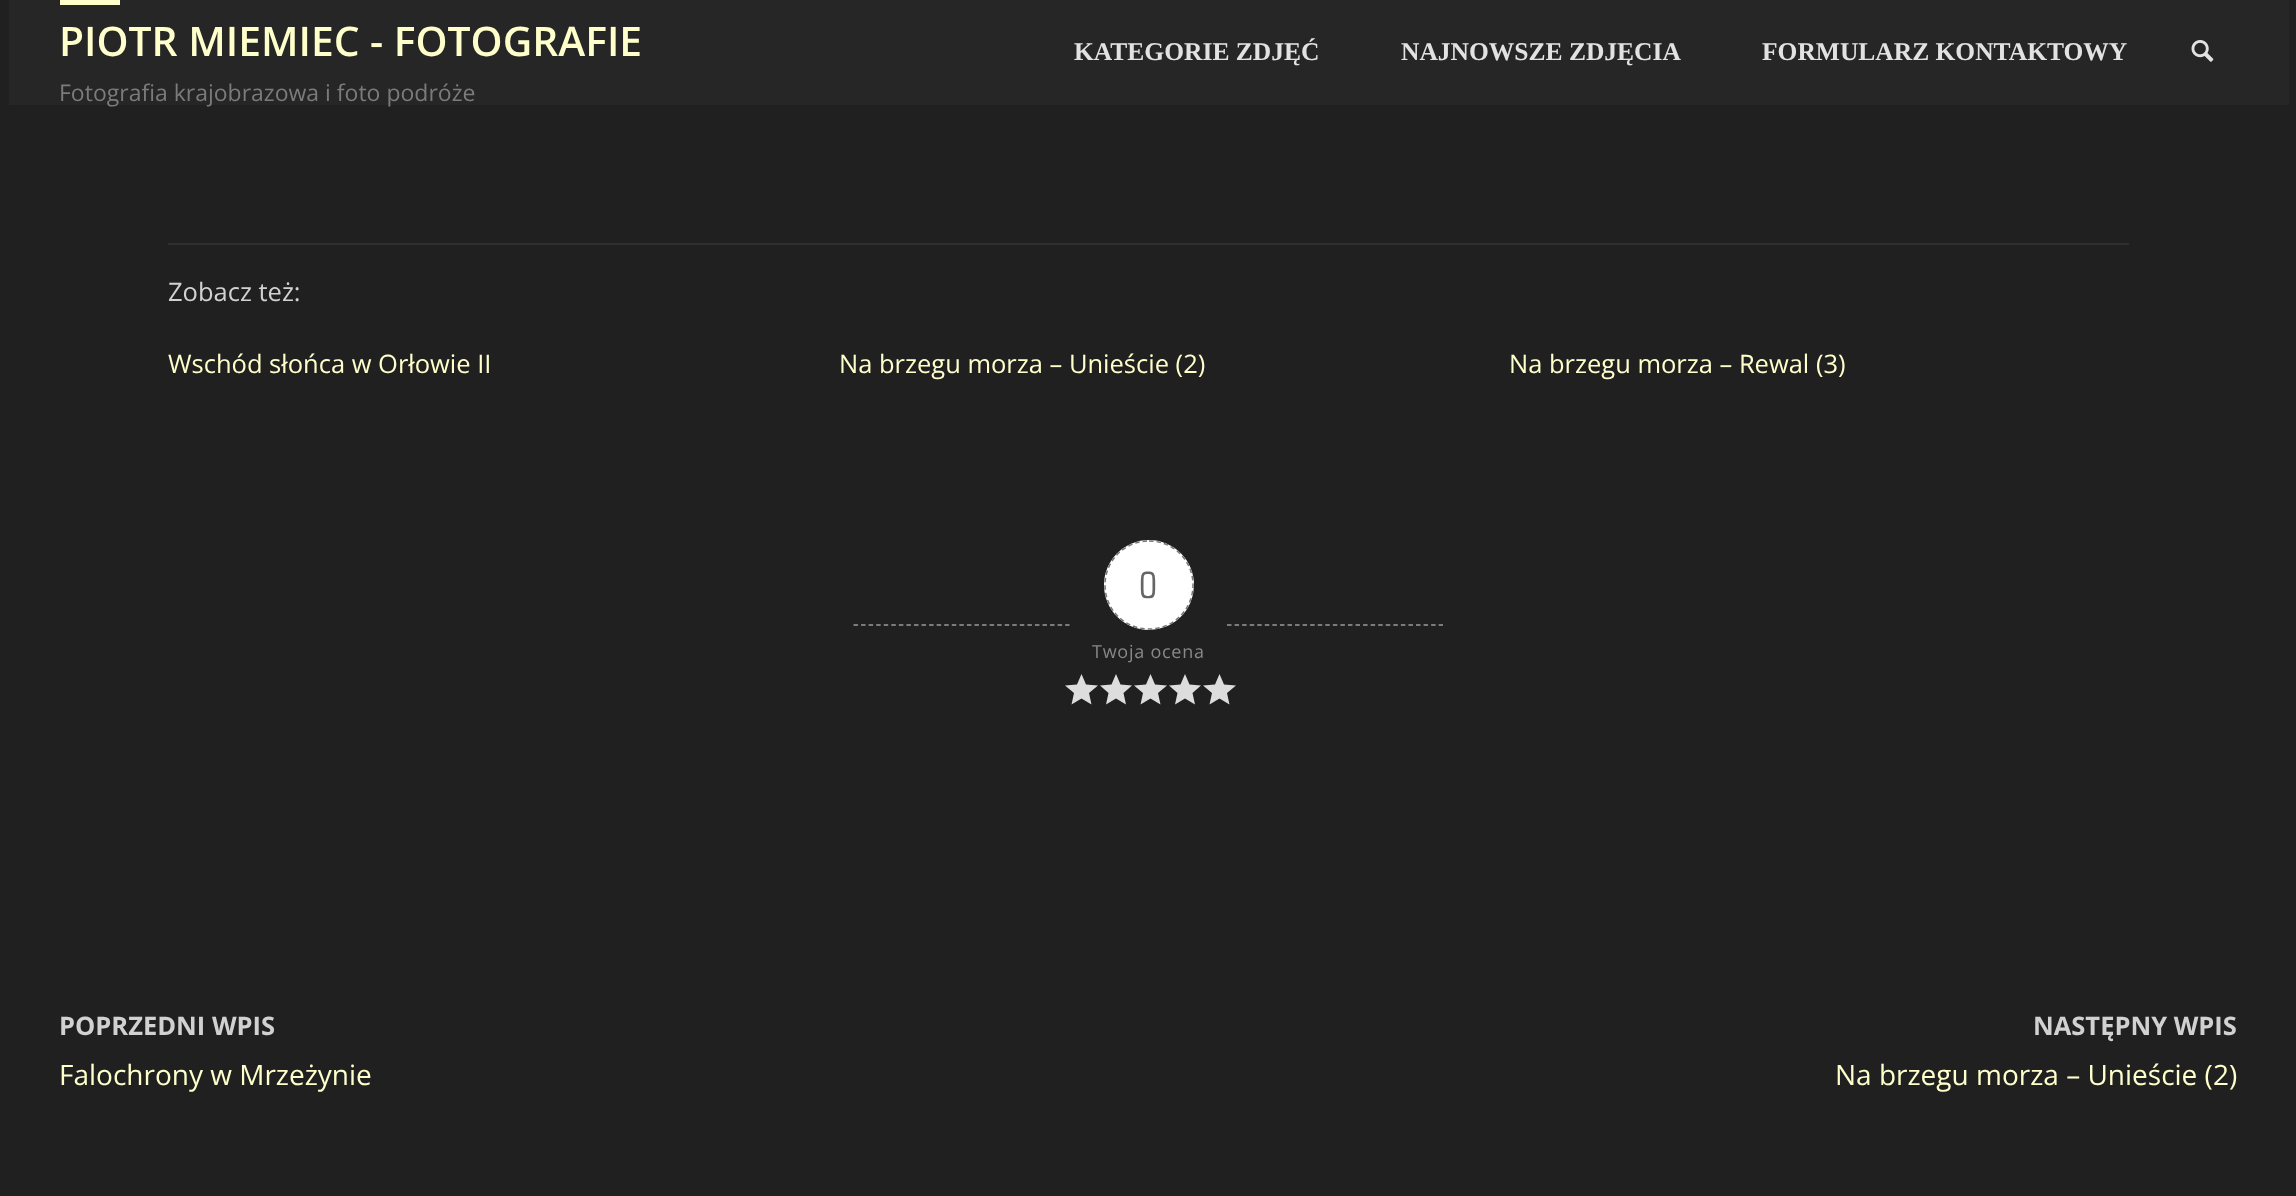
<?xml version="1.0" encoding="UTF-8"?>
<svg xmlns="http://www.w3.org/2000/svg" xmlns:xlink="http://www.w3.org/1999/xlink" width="2296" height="1196">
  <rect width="100%" height="100%" fill="#202020" />
  <rect x="9" width="2280" height="105" fill="#262626" />
  <rect x="60" width="60" height="5" fill="#ffffcc" />
  <image x="2191" y="40" width="23" height="22" xlink:href="image1.png" />
  <rect x="168" y="243" width="1961" height="2" fill="#2f2f2f" />
  <path d="M 853.5 625 h 216" fill="none" stroke="#999999" stroke-width="1.5" stroke-dasharray="4.5 3.06" />
  <circle cx="1149" cy="585" r="45" fill="#ffffff" />
  <path d="M 1149 541 c 24.5 0 44 19.5 44 44 c 0 24.5 -19.5 44 -44 44 c -24.5 0 -44 -19.5 -44 -44 c 0 -24.5 19.5 -44 44 -44 z" fill="none" stroke="#777777" stroke-width="1.5" stroke-dasharray="4.5 3" />
  <path d="M 1081.5 698.5 l 10 6 l -2.5 -11.5 l 9 -7.5 l -12 -1 l -4.5 -10.5 l -4.5 10.5 l -12 1 l 9 7.5 l -2.5 11.5 z" fill="#dddddd" />
  <path d="M 1116 698.5 l 10 6 l -2.5 -11.5 l 8.5 -7.5 l -11.5 -1 l -4.5 -10.5 l -4.5 10.5 l -11.5 1 l 8.5 7.5 l -2.5 11.5 z" fill="#dddddd" />
  <path d="M 1150.5 698.5 l 10 6 l -2.5 -11.5 l 9 -7.5 l -12 -1 l -4.5 -10.5 l -4.5 10.5 l -12 1 l 9 7.5 l -2.5 11.5 z" fill="#dddddd" />
  <path d="M 1185 698.5 l 10 6 l -2.5 -11.5 l 8.5 -7.5 l -11.5 -1 l -4.5 -10.5 l -4.5 10.5 l -11.5 1 l 8.5 7.5 l -2.5 11.5 z" fill="#dddddd" />
  <path d="M 1219.5 698.5 l 10 6 l -2.5 -11.5 l 9 -7.5 l -12 -1 l -4.5 -10.5 l -4.5 10.5 l -12 1 l 9 7.5 l -2.5 11.5 z" fill="#dddddd" />
  <path d="M 1227 625 h 216" fill="none" stroke="#999999" stroke-width="1.5" stroke-dasharray="4.5 3.06" />
  <text x="59" y="56" style="font-family: Open Sans; font-size: 40.75px; font-weight: 600; fill: #ffffcc">PIOTR MIEMIEC - FOTOGRAFIE</text>
  <text x="59" y="101" style="font-family: Open Sans; font-size: 23px; fill: #7b7b7b">Fotografia krajobrazowa i foto podróże</text>
  <text x="1074" y="60" style="font-family: Liberation Serif; font-size: 25.5px; font-weight: bold; fill: #e2e2e2">KATEGORIE ZDJĘĆ</text>
  <text x="1401" y="60" style="font-family: Liberation Serif; font-size: 25.5px; font-weight: bold; fill: #e2e2e2">NAJNOWSZE ZDJĘCIA</text>
  <text x="1762" y="60" style="font-family: Liberation Serif; font-size: 25.5px; font-weight: bold; fill: #e2e2e2">FORMULARZ KONTAKTOWY</text>
  <text x="168" y="301" style="font-family: Open Sans; font-size: 25.5px; fill: #d1d1d1">Zobacz też:</text>
  <text x="168" y="373" style="font-family: Open Sans; font-size: 25.5px; fill: #ffffcc">Wschód słońca w Orłowie II</text>
  <text x="839" y="373" style="font-family: Open Sans; font-size: 25.5px; fill: #ffffcc">Na brzegu morza – Unieście (2)</text>
  <text x="1509" y="373" style="font-family: Open Sans; font-size: 25.5px; fill: #ffffcc">Na brzegu morza – Rewal (3)</text>
  <text x="1139" y="598" style="font-family: 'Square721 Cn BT'; font-size: 36px; fill: #666666">0</text>
  <text x="1092" y="658" style="font-family: Open Sans; font-size: 18px; letter-spacing: 0.75px; fill: #888888">Twoja ocena</text>
  <text x="59" y="1035" style="font-family: Open Sans; font-size: 25.5px; font-weight: bold; fill: #d1d1d1">POPRZEDNI WPIS</text>
  <text x="59" y="1085" style="font-family: Open Sans; font-size: 28px; fill: #ffffcc">Falochrony w Mrzeżynie</text>
  <text x="2033" y="1035" style="font-family: Open Sans; font-size: 25.5px; font-weight: bold; fill: #d1d1d1">NASTĘPNY WPIS</text>
  <text x="1835" y="1085" style="font-family: Open Sans; font-size: 28px; fill: #ffffcc">Na brzegu morza – Unieście (2)</text>
</svg>
